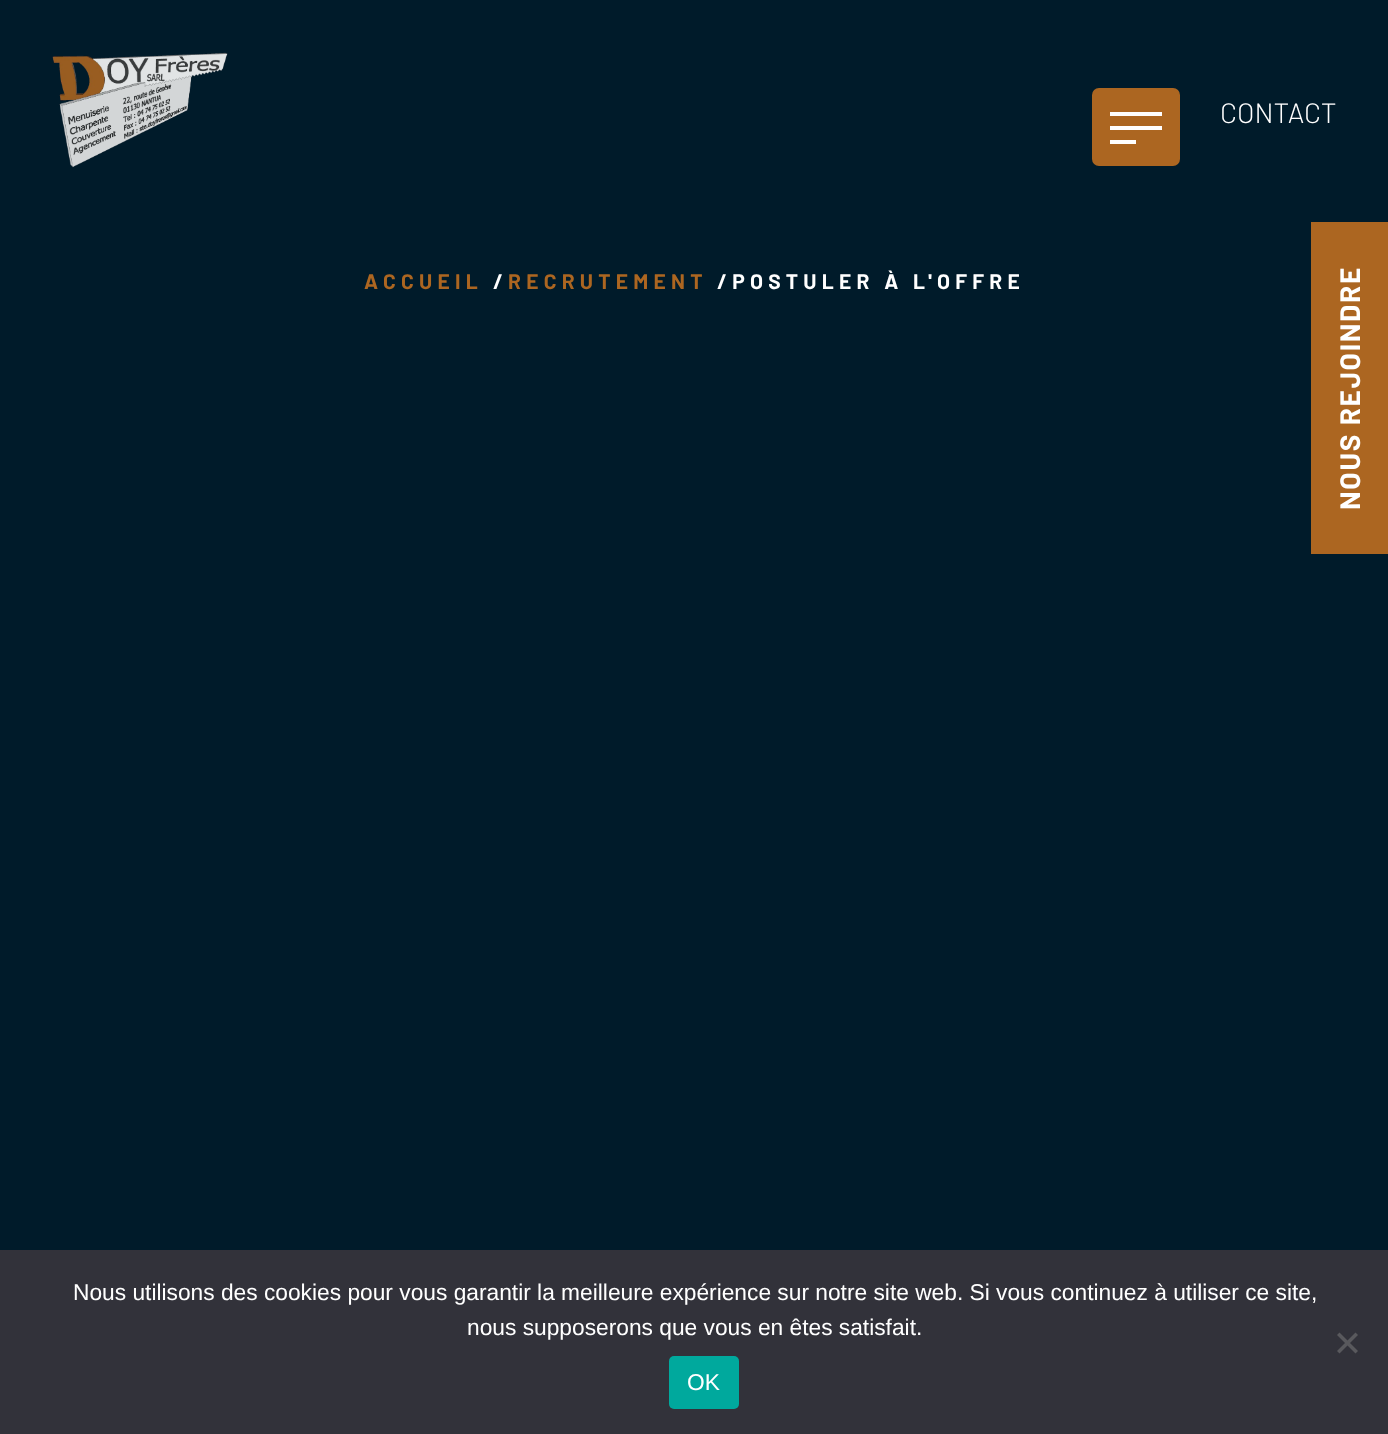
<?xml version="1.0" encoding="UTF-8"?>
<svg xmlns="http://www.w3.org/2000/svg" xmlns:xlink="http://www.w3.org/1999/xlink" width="1388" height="1434">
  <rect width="100%" height="100%" fill="#001b2a" />
  <image x="52" y="52" width="176" height="116" xlink:href="image1.png" />
  <rect x="1092" y="88" width="88" height="78" rx="7" fill="#ac6621" />
  <rect x="1110" y="112" width="52" height="4" fill="#ffffff" />
  <rect x="1110" y="126" width="52" height="4" fill="#ffffff" />
  <rect x="1110" y="140" width="26" height="4" fill="#ffffff" />
  <rect x="1311" y="222" width="77" height="332" fill="#ac6621" />
  <rect y="1250" width="1388" height="184" fill="#32323a" />
  <path d="M 1355.5 1332.5 l 2.5 2.5 l -18.5 18.5 l -2.5 -2.5 z" fill="#59595d" />
  <path d="M 1337 1335 l 2.5 -2.5 l 18.5 18.5 l -2.5 2.5 z" fill="#59595d" />
  <rect x="669" y="1356" width="70" height="53" rx="5" fill="#00a99d" />
  <text x="1220" y="123" style="font-family: Barlow; font-size: 28px; font-weight: 300; fill: #ffffff">CONTACT</text>
  <text x="364" y="289" style="font-family: Barlow; font-size: 21px; font-weight: bold; letter-spacing: 5.25px; fill: #ac6621">ACCUEIL</text>
  <text x="493" y="289" style="font-family: Barlow; font-size: 21px; font-weight: bold; letter-spacing: 5.25px; fill: #ffffff">/</text>
  <text x="508" y="289" style="font-family: Barlow; font-size: 21px; font-weight: bold; letter-spacing: 5.25px; fill: #ac6621">RECRUTEMENT</text>
  <text x="717" y="289" style="font-family: Barlow; font-size: 21px; font-weight: bold; letter-spacing: 5.25px; fill: #ffffff">/POSTULER À L'OFFRE</text>
  <text x="1360" y="510" transform="rotate(-90 1360 510)" style="font-family: Barlow; font-size: 28px; font-weight: bold; letter-spacing: 1.75px; fill: #ffffff">NOUS REJOINDRE</text>
  <text x="73" y="1300" style="font-family: Liberation Sans; font-size: 22.75px; fill: #ffffff">Nous utilisons des cookies pour vous garantir la meilleure expérience sur notre site web. Si vous continuez à utiliser ce site,</text>
  <text x="467" y="1335" style="font-family: Liberation Sans; font-size: 22.75px; fill: #ffffff">nous supposerons que vous en êtes satisfait.</text>
  <text x="687" y="1390" style="font-family: Liberation Sans; font-size: 22.75px; fill: #ffffff">OK</text>
</svg>
